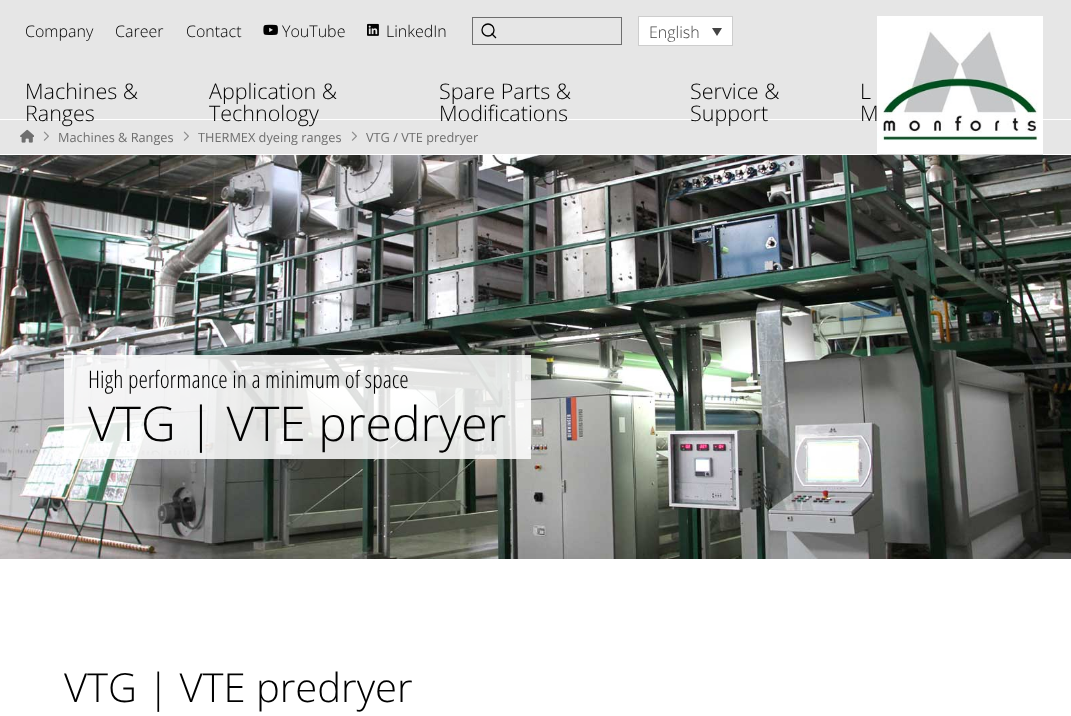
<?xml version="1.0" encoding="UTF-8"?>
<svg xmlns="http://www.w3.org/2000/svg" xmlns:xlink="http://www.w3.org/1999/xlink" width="1071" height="716">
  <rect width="100%" height="100%" fill="#ffffff" />
  <rect width="1071" height="119" fill="#e6e6e6" />
  <image x="263" y="24" width="15" height="11" xlink:href="image1.png" />
  <image x="367" y="23" width="12" height="13" xlink:href="image2.png" />
  <rect x="472.5" y="17.5" width="149" height="27" fill="none" stroke="#6e6e6e" />
  <circle cx="488" cy="30" r="6" fill="none" stroke="#000000" stroke-width="1.3" />
  <path d="M 495.5 37.5 l -3.5 -3.5" fill="none" stroke="#000000" stroke-width="1.3" stroke-linecap="square" />
  <rect x="638.5" y="16.5" width="94" height="29" fill="#ffffff" stroke="#cdcdcd" />
  <path d="M 712 28 h 10 l -5 8 z" fill="#444444" />
  <rect y="120" width="1071" height="34" fill="#e6e6e6" />
  <image x="877" y="16" width="166" height="139" xlink:href="image3.png" />
  <image x="20" y="129" width="14" height="14" xlink:href="image4.png" />
  <image x="43" y="131" width="6" height="10" xlink:href="image5.png" />
  <image x="183" y="131" width="6" height="10" xlink:href="image5.png" />
  <image x="351" y="131" width="6" height="10" xlink:href="image5.png" />
  <image x="0" y="155" width="1071" height="404" xlink:href="image6.png" />
  <rect x="64" y="355" width="467" height="104" fill="#ffffff" fill-opacity="0.85" />
  <text x="25" y="37" style="font-family: Open Sans; font-size: 16px; font-weight: 300; fill: #000000">Company</text>
  <text x="115" y="37" style="font-family: Open Sans; font-size: 16px; font-weight: 300; fill: #000000">Career</text>
  <text x="186" y="37" style="font-family: Open Sans; font-size: 16px; font-weight: 300; fill: #000000">Contact</text>
  <text x="282" y="37" style="font-family: Open Sans; font-size: 16px; font-weight: 300; fill: #000000">YouTube</text>
  <text x="386" y="37" style="font-family: Open Sans; font-size: 16px; font-weight: 300; fill: #000000">LinkedIn</text>
  <text x="649" y="38" style="font-family: Open Sans; font-size: 16px; font-weight: 300; fill: #444444">English</text>
  <text x="25" y="99" style="font-family: Open Sans; font-size: 21.5px; font-weight: 300; fill: #000000">Machines &amp;</text>
  <text x="25" y="121" style="font-family: Open Sans; font-size: 21.5px; font-weight: 300; fill: #000000">Ranges</text>
  <text x="209" y="99" style="font-family: Open Sans; font-size: 21.5px; font-weight: 300; fill: #000000">Application &amp;</text>
  <text x="209" y="121" style="font-family: Open Sans; font-size: 21.5px; font-weight: 300; fill: #000000">Technology</text>
  <text x="439" y="99" style="font-family: Open Sans; font-size: 21.5px; font-weight: 300; fill: #000000">Spare Parts &amp;</text>
  <text x="439" y="121" style="font-family: Open Sans; font-size: 21.5px; font-weight: 300; fill: #000000">Modifications</text>
  <text x="690" y="99" style="font-family: Open Sans; font-size: 21.5px; font-weight: 300; fill: #000000">Service &amp;</text>
  <text x="690" y="121" style="font-family: Open Sans; font-size: 21.5px; font-weight: 300; fill: #000000">Support</text>
  <text x="860" y="99" style="font-family: Open Sans; font-size: 21.5px; font-weight: 300; fill: #000000">L</text>
  <text x="860" y="121" style="font-family: Open Sans; font-size: 21.5px; font-weight: 300; fill: #000000">M</text>
  <text x="58" y="142" style="font-family: Open Sans; font-size: 12.75px; fill: #6e6e6e">Machines &amp; Ranges</text>
  <text x="198" y="142" style="font-family: Open Sans; font-size: 12.75px; fill: #6e6e6e">THERMEX dyeing ranges</text>
  <text x="366" y="142" style="font-family: Open Sans; font-size: 12.75px; fill: #6e6e6e">VTG / VTE predryer</text>
  <text x="88" y="388" style="font-family: Open Sans Condensed; font-size: 24px; font-weight: 300; fill: #000000">High performance in a minimum of space</text>
  <text x="88" y="441" style="font-family: Open Sans; font-size: 48px; font-weight: 300; fill: #000000">VTG | VTE predryer</text>
  <text x="64" y="702" style="font-family: Open Sans; font-size: 40px; font-weight: 300; fill: #000000">VTG | VTE predryer</text>
</svg>
